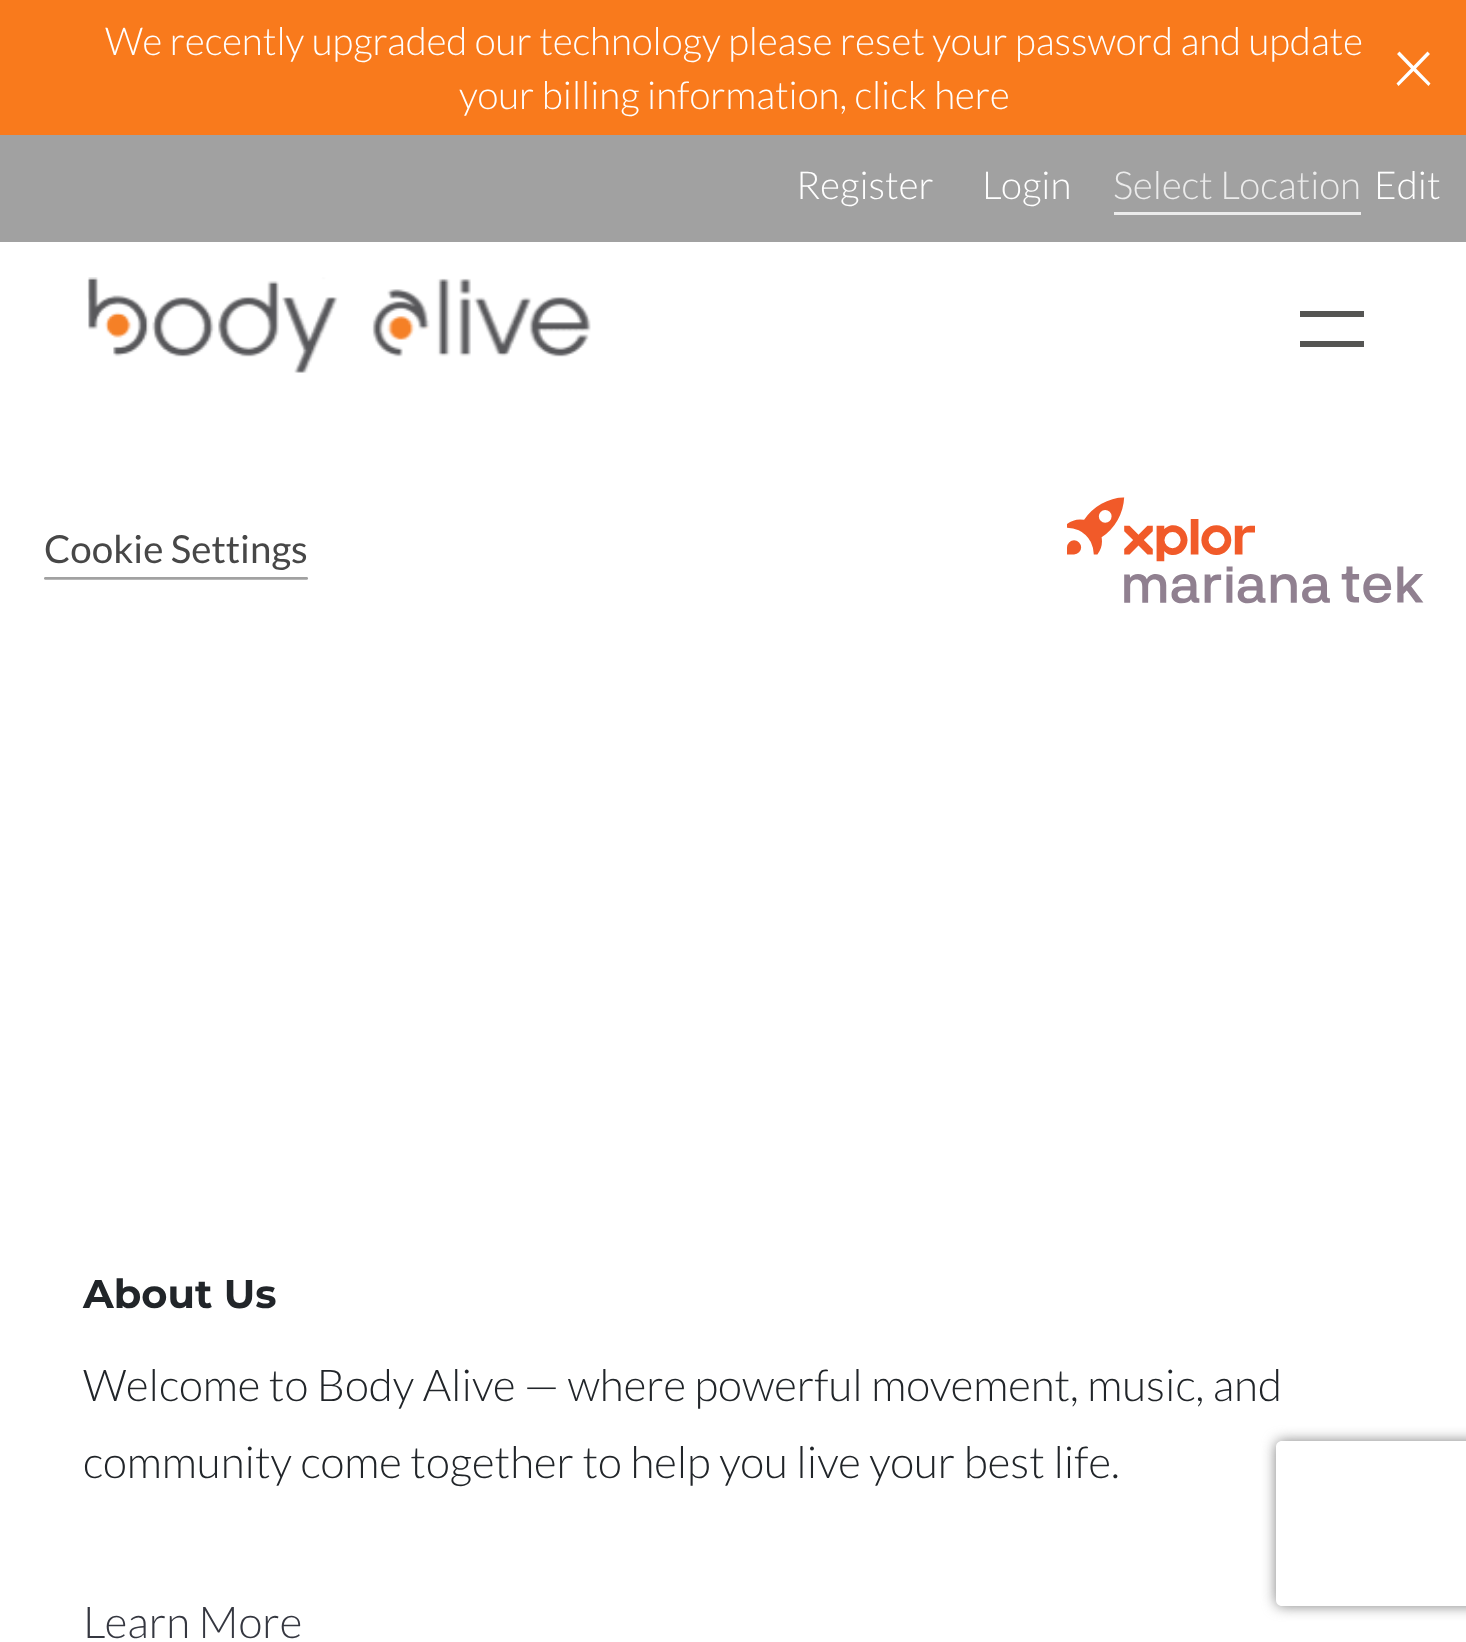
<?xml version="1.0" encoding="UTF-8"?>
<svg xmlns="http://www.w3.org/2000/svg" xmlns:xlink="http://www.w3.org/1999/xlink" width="1466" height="1642">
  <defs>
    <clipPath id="clip1"><path d="M 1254 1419 h 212 v 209 h -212 z m 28 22 h 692 c 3.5 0 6 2.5 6 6 v 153 c 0 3.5 -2.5 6 -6 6 h -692 c -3.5 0 -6 -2.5 -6 -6 v -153 c 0 -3.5 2.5 -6 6 -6 z" clip-rule="evenodd" /></clipPath>
  </defs>
  <rect width="100%" height="100%" fill="#ffffff" />
  <rect width="1466" height="135" fill="#f97a1c" />
  <path d="M 1416 68.5 l 14 -14.5 l -2.5 -2.5 l -14 14.5 l -14 -14.5 l -2.5 2.5 l 14 14.5 l -14.5 15 l 2 2.5 l 15 -15 l 15 15 l 2 -2.5 z" fill="#ffffff" />
  <rect y="135" width="1466" height="107" fill="#a1a1a1" />
  <rect x="1114" y="212" width="247" height="3" fill="#ececec" />
  <image x="87" y="277" width="504" height="96" xlink:href="image1.png" />
  <rect x="1300" y="311" width="64" height="6" fill="#555553" />
  <rect x="1300" y="341" width="64" height="6" fill="#555553" />
  <image x="44" y="497" width="1380" height="107" xlink:href="image2.png" />
  <g clip-path="url(#clip1)">
    <rect x="1276" y="1441" width="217" height="165" rx="6" fill="#808080" filter="blur(7px)" />
  </g>
  <text x="105" y="55" style="font-family: Lato; font-size: 38.5px; font-weight: 300; fill: #ffffff">We recently upgraded our technology please reset your password and update</text>
  <text x="459" y="109" style="font-family: Lato; font-size: 38.5px; font-weight: 300; fill: #ffffff">your billing information, click here</text>
  <text x="796" y="199" style="font-family: Lato; font-size: 38.5px; font-weight: 300; fill: #ffffff">Register</text>
  <text x="982" y="199" style="font-family: Lato; font-size: 38.5px; font-weight: 300; fill: #ffffff">Login</text>
  <text x="1113" y="199" style="font-family: Lato; font-size: 38.5px; font-weight: 300; fill: #ececec">Select Location</text>
  <text x="1374" y="199" style="font-family: Lato; font-size: 38.5px; font-weight: 300; fill: #ffffff">Edit</text>
  <text x="83" y="1308" style="font-family: Montserrat; font-size: 40px; font-weight: bold; fill: #212529">About Us</text>
  <text x="83" y="1401" style="font-family: Lato; font-size: 44px; font-weight: 300; fill: #212529">Welcome to Body Alive — where powerful movement, music, and</text>
  <text x="83" y="1478" style="font-family: Lato; font-size: 44px; font-weight: 300; fill: #212529">community come together to help you live your best life.</text>
  <text x="83" y="1638" style="font-family: Lato; font-size: 44px; font-weight: 300; fill: #353740">Learn More</text>
</svg>
